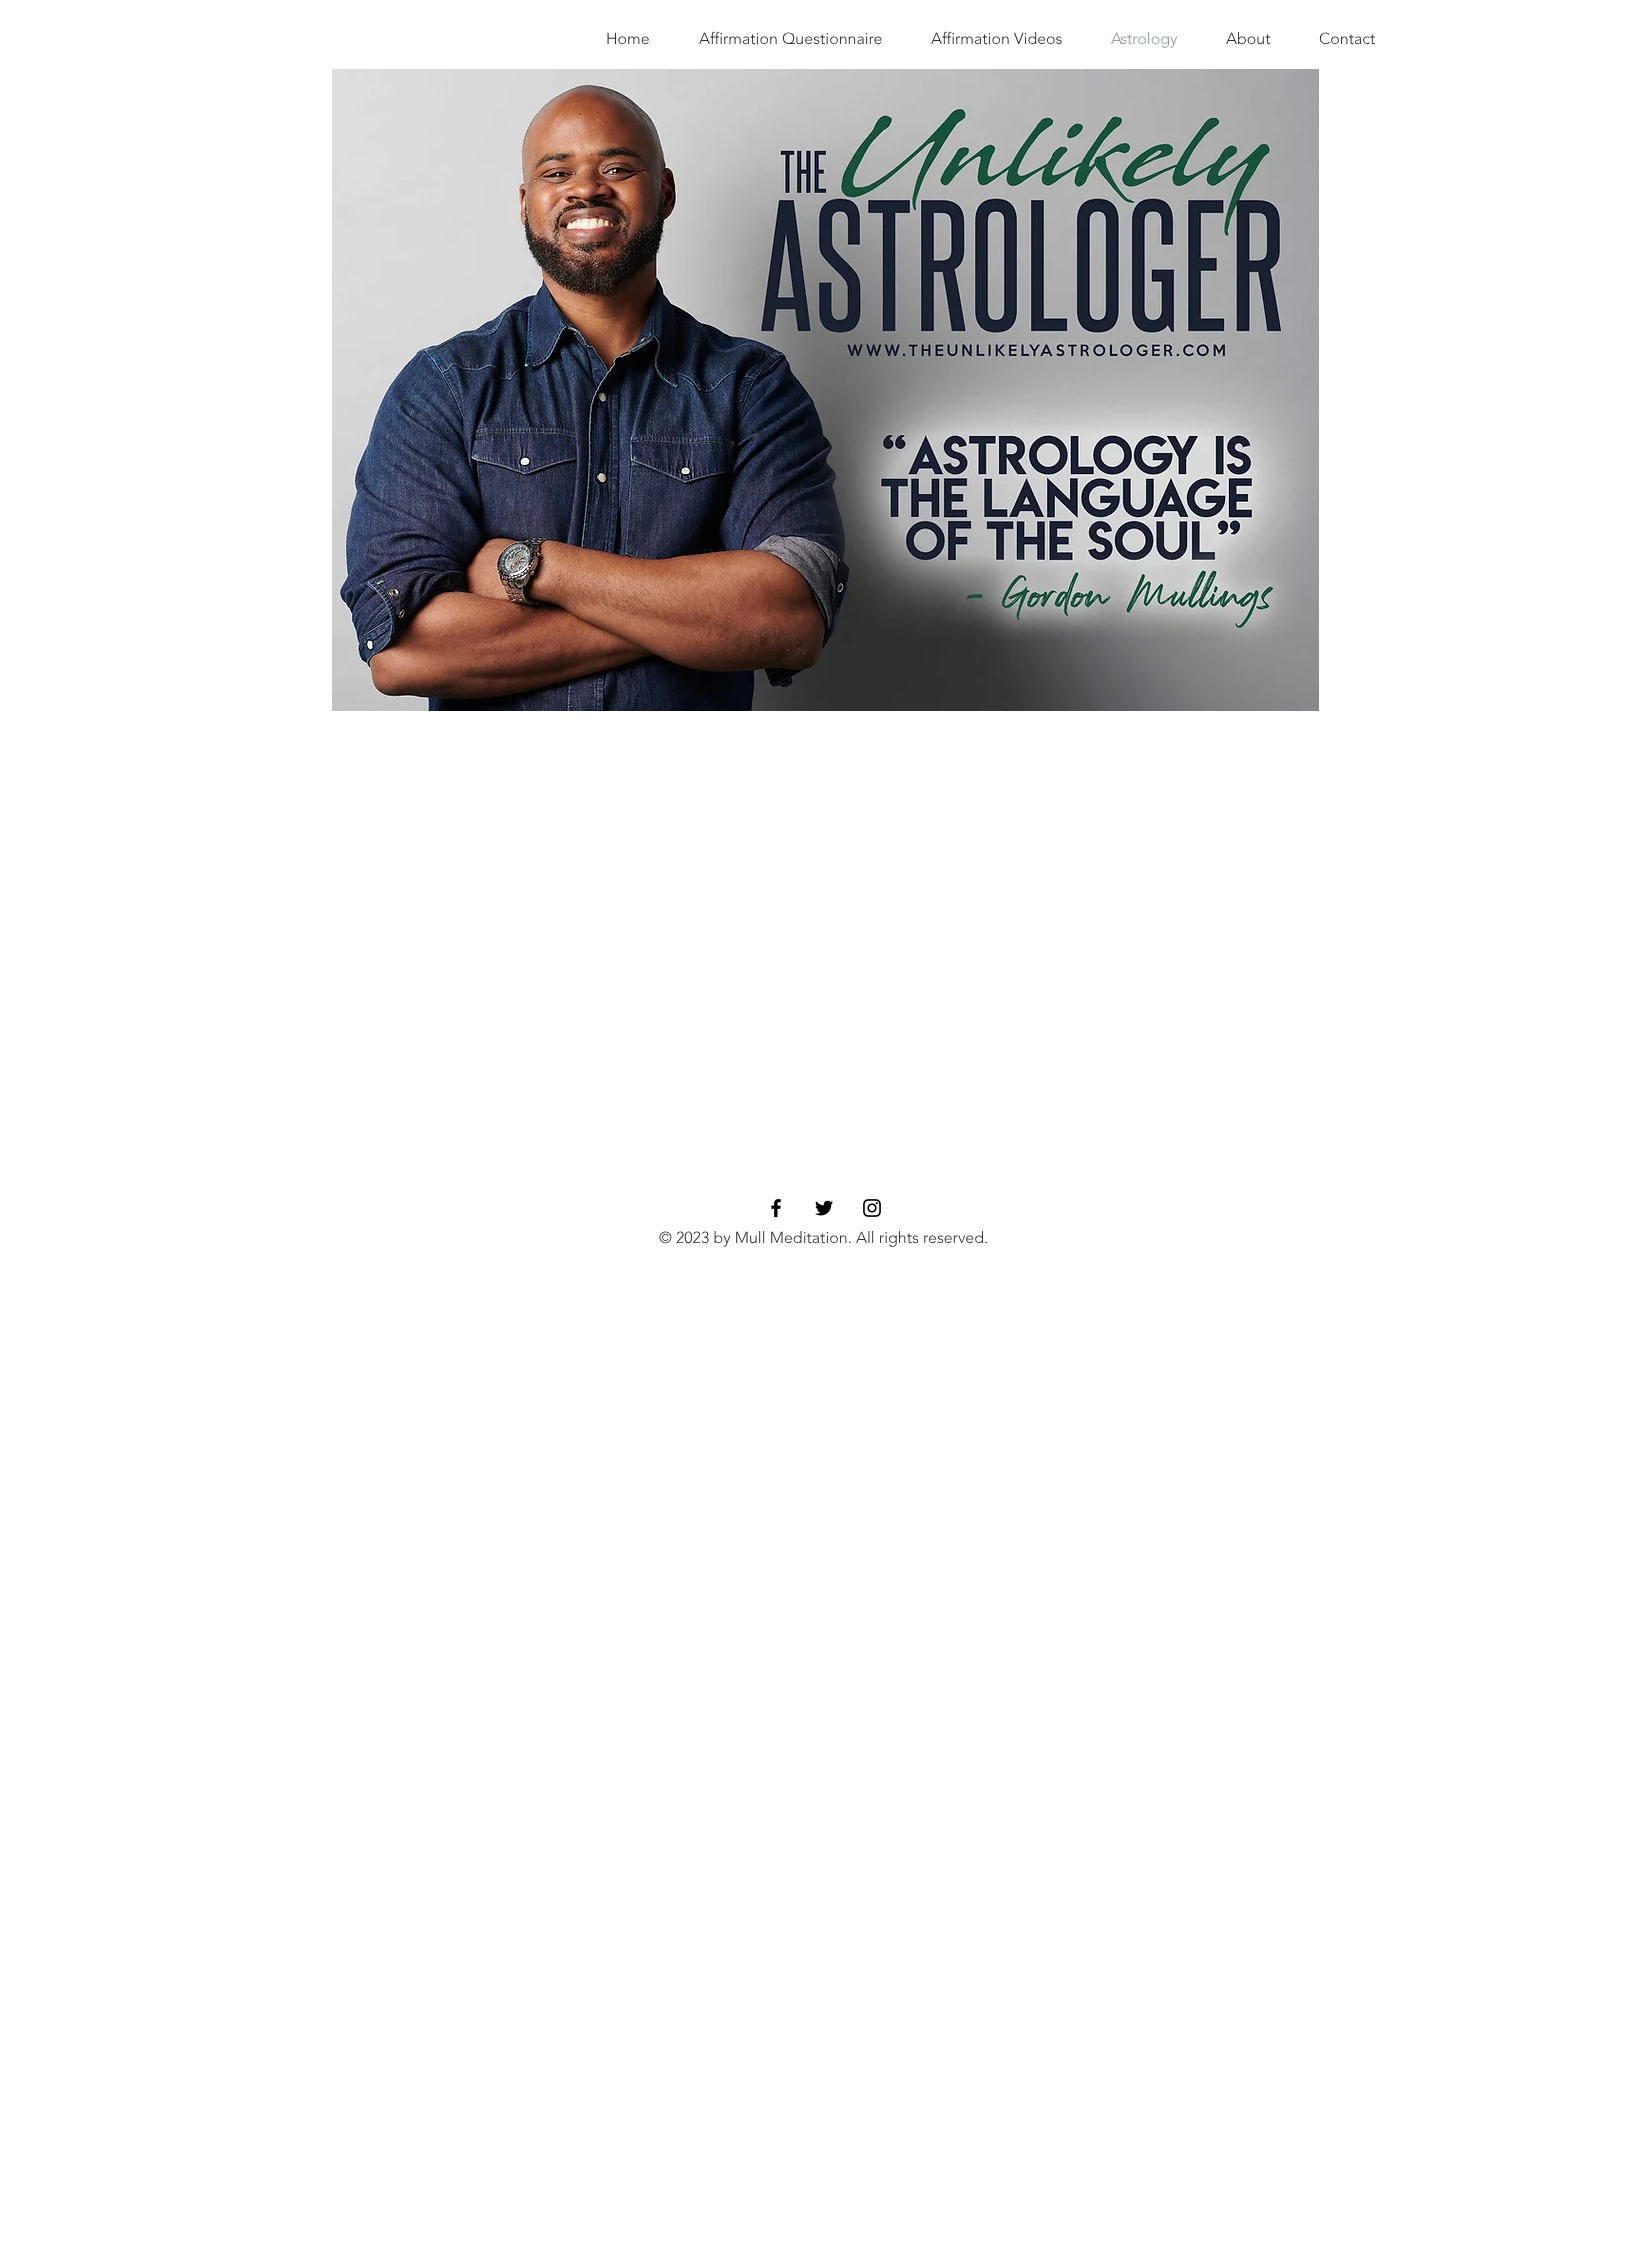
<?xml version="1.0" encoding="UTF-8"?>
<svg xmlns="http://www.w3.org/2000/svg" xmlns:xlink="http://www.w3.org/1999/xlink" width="1648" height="2264">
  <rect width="100%" height="100%" fill="#ffffff" />
  <image x="332" y="69" width="987" height="642" xlink:href="image1.png" />
  <image x="771" y="1198" width="10" height="20" xlink:href="image2.png" />
  <image x="815" y="1200" width="18" height="16" xlink:href="image3.png" />
  <image x="863" y="1199" width="18" height="18" xlink:href="image4.png" />
  <text x="606" y="44" style="font-family: 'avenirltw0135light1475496'; font-size: 16px; font-weight: 300; fill: #303131">Home</text>
  <text x="699" y="44" style="font-family: 'avenirltw0135light1475496'; font-size: 16px; font-weight: 300; fill: #303131">Affirmation Questionnaire</text>
  <text x="931" y="44" style="font-family: 'avenirltw0135light1475496'; font-size: 16px; font-weight: 300; fill: #303131">Affirmation Videos</text>
  <text x="1111" y="44" style="font-family: 'avenirltw0135light1475496'; font-size: 16px; font-weight: 300; fill: #8b98a7">Astrology</text>
  <text x="1226" y="44" style="font-family: 'avenirltw0135light1475496'; font-size: 16px; font-weight: 300; fill: #303131">About</text>
  <text x="1319" y="44" style="font-family: 'avenirltw0135light1475496'; font-size: 16px; font-weight: 300; fill: #303131">Contact</text>
  <text x="659" y="1243" style="font-family: 'avenirltw0135light1475496'; font-size: 16px; font-weight: 300; fill: #303131">© 2023 by Mull Meditation. All rights reserved.</text>
</svg>
